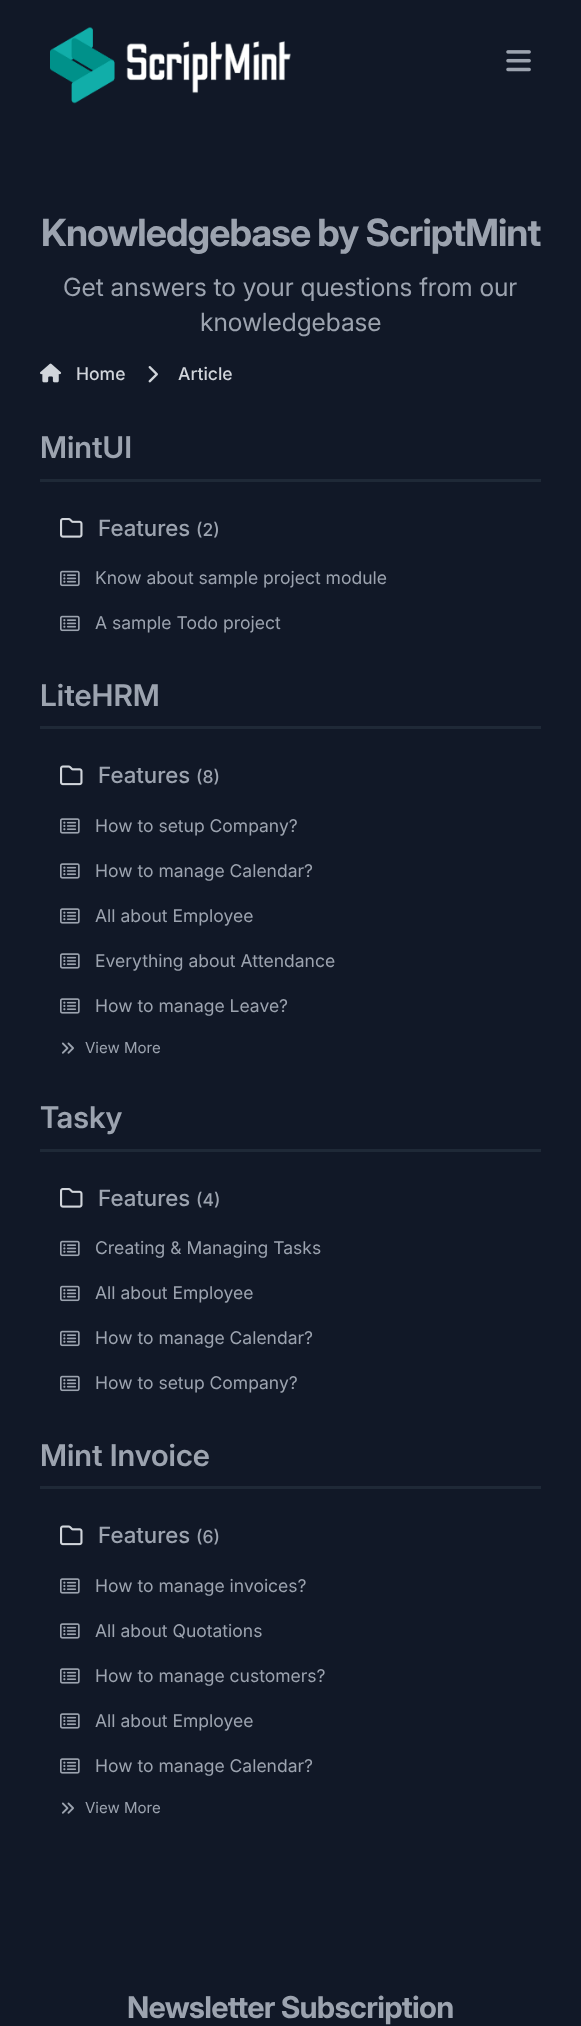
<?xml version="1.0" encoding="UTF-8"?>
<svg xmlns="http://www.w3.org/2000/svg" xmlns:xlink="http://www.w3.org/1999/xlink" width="581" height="2026">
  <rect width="100%" height="100%" fill="#111827" />
  <image x="50" y="27" width="241" height="77" xlink:href="image1.png" />
  <image x="506" y="50" width="25" height="22" xlink:href="image2.png" />
  <image x="40" y="363" width="22" height="20" xlink:href="image3.png" />
  <image x="148" y="366" width="10" height="17" xlink:href="image4.png" />
  <rect x="40" y="479" width="501" height="3" fill="#1f2937" />
  <image x="60" y="518" width="23" height="20" xlink:href="image5.png" />
  <image x="60" y="570" width="20" height="17" xlink:href="image6.png" />
  <image x="60" y="615" width="20" height="17" xlink:href="image6.png" />
  <rect x="40" y="726" width="501" height="3" fill="#1f2937" />
  <image x="60" y="765" width="23" height="21" xlink:href="image7.png" />
  <image x="60" y="818" width="20" height="16" xlink:href="image8.png" />
  <image x="60" y="863" width="20" height="16" xlink:href="image8.png" />
  <image x="60" y="908" width="20" height="16" xlink:href="image8.png" />
  <image x="60" y="953" width="20" height="16" xlink:href="image8.png" />
  <image x="60" y="998" width="20" height="16" xlink:href="image8.png" />
  <image x="61" y="1042" width="13" height="12" xlink:href="image9.png" />
  <rect x="40" y="1149" width="501" height="3" fill="#1f2937" />
  <image x="60" y="1188" width="23" height="20" xlink:href="image5.png" />
  <image x="60" y="1240" width="20" height="17" xlink:href="image6.png" />
  <image x="60" y="1285" width="20" height="17" xlink:href="image6.png" />
  <image x="60" y="1330" width="20" height="17" xlink:href="image6.png" />
  <image x="60" y="1375" width="20" height="17" xlink:href="image6.png" />
  <rect x="40" y="1486" width="501" height="3" fill="#1f2937" />
  <image x="60" y="1525" width="23" height="21" xlink:href="image7.png" />
  <image x="60" y="1578" width="20" height="16" xlink:href="image8.png" />
  <image x="60" y="1623" width="20" height="16" xlink:href="image8.png" />
  <image x="60" y="1668" width="20" height="16" xlink:href="image8.png" />
  <image x="60" y="1713" width="20" height="16" xlink:href="image8.png" />
  <image x="60" y="1758" width="20" height="16" xlink:href="image8.png" />
  <image x="61" y="1802" width="13" height="12" xlink:href="image9.png" />
  <text x="41" y="246" style="font-family: 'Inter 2'; font-size: 37.5px; font-weight: bold; letter-spacing: -0.95px; fill: #9ca3af">Knowledgebase by ScriptMint</text>
  <text x="63" y="296" style="font-family: Inter; font-size: 25px; fill: #9ca3af">Get answers to your questions from our</text>
  <text x="200" y="331" style="font-family: Inter; font-size: 25px; fill: #9ca3af">knowledgebase</text>
  <text x="76" y="380" style="font-family: 'Inter 2'; font-size: 17.5px; font-weight: 500; fill: #d1d5db">Home</text>
  <text x="178" y="380" style="font-family: 'Inter 2'; font-size: 17.5px; font-weight: 500; fill: #d1d5db">Article</text>
  <text x="40" y="458" style="font-family: Inter; font-size: 30px; font-weight: 600; fill: #9ca3af">MintUI</text>
  <text x="98" y="536" style="font-family: Inter; font-size: 22.5px; font-weight: 500; fill: #9ca3af">Features</text>
  <text x="196" y="536" style="font-family: 'Inter 2'; font-size: 17.5px; font-weight: 500; fill: #9ca3af">(2)</text>
  <text x="95" y="584" style="font-family: 'Inter 2'; font-size: 17.5px; fill: #9ca3af">Know about sample project module</text>
  <text x="95" y="629" style="font-family: 'Inter 2'; font-size: 17.5px; fill: #9ca3af">A sample Todo project</text>
  <text x="40" y="706" style="font-family: Inter; font-size: 30px; font-weight: 600; fill: #9ca3af">LiteHRM</text>
  <text x="98" y="783" style="font-family: Inter; font-size: 22.5px; font-weight: 500; fill: #9ca3af">Features</text>
  <text x="196" y="783" style="font-family: 'Inter 2'; font-size: 17.5px; font-weight: 500; fill: #9ca3af">(8)</text>
  <text x="95" y="832" style="font-family: 'Inter 2'; font-size: 17.5px; fill: #9ca3af">How to setup Company?</text>
  <text x="95" y="877" style="font-family: 'Inter 2'; font-size: 17.5px; fill: #9ca3af">How to manage Calendar?</text>
  <text x="95" y="922" style="font-family: 'Inter 2'; font-size: 17.5px; fill: #9ca3af">All about Employee</text>
  <text x="95" y="967" style="font-family: 'Inter 2'; font-size: 17.5px; fill: #9ca3af">Everything about Attendance</text>
  <text x="95" y="1012" style="font-family: 'Inter 2'; font-size: 17.5px; fill: #9ca3af">How to manage Leave?</text>
  <text x="85" y="1053" style="font-family: 'Inter 2'; font-size: 15px; fill: #9ca3af">View More</text>
  <text x="40" y="1128" style="font-family: Inter; font-size: 30px; font-weight: 600; fill: #9ca3af">Tasky</text>
  <text x="98" y="1206" style="font-family: Inter; font-size: 22.5px; font-weight: 500; fill: #9ca3af">Features</text>
  <text x="196" y="1206" style="font-family: 'Inter 2'; font-size: 17.5px; font-weight: 500; fill: #9ca3af">(4)</text>
  <text x="95" y="1254" style="font-family: 'Inter 2'; font-size: 17.5px; fill: #9ca3af">Creating &amp; Managing Tasks</text>
  <text x="95" y="1299" style="font-family: 'Inter 2'; font-size: 17.5px; fill: #9ca3af">All about Employee</text>
  <text x="95" y="1344" style="font-family: 'Inter 2'; font-size: 17.5px; fill: #9ca3af">How to manage Calendar?</text>
  <text x="95" y="1389" style="font-family: 'Inter 2'; font-size: 17.5px; fill: #9ca3af">How to setup Company?</text>
  <text x="40" y="1466" style="font-family: Inter; font-size: 30px; font-weight: 600; fill: #9ca3af">Mint Invoice</text>
  <text x="98" y="1543" style="font-family: Inter; font-size: 22.5px; font-weight: 500; fill: #9ca3af">Features</text>
  <text x="196" y="1543" style="font-family: 'Inter 2'; font-size: 17.5px; font-weight: 500; fill: #9ca3af">(6)</text>
  <text x="95" y="1592" style="font-family: 'Inter 2'; font-size: 17.5px; fill: #9ca3af">How to manage invoices?</text>
  <text x="95" y="1637" style="font-family: 'Inter 2'; font-size: 17.5px; fill: #9ca3af">All about Quotations</text>
  <text x="95" y="1682" style="font-family: 'Inter 2'; font-size: 17.5px; fill: #9ca3af">How to manage customers?</text>
  <text x="95" y="1727" style="font-family: 'Inter 2'; font-size: 17.5px; fill: #9ca3af">All about Employee</text>
  <text x="95" y="1772" style="font-family: 'Inter 2'; font-size: 17.5px; fill: #9ca3af">How to manage Calendar?</text>
  <text x="85" y="1813" style="font-family: 'Inter 2'; font-size: 15px; fill: #9ca3af">View More</text>
  <text x="127" y="2018" style="font-family: Inter; font-size: 30px; font-weight: bold; letter-spacing: -0.75px; fill: #9ca3af">Newsletter Subscription</text>
</svg>
